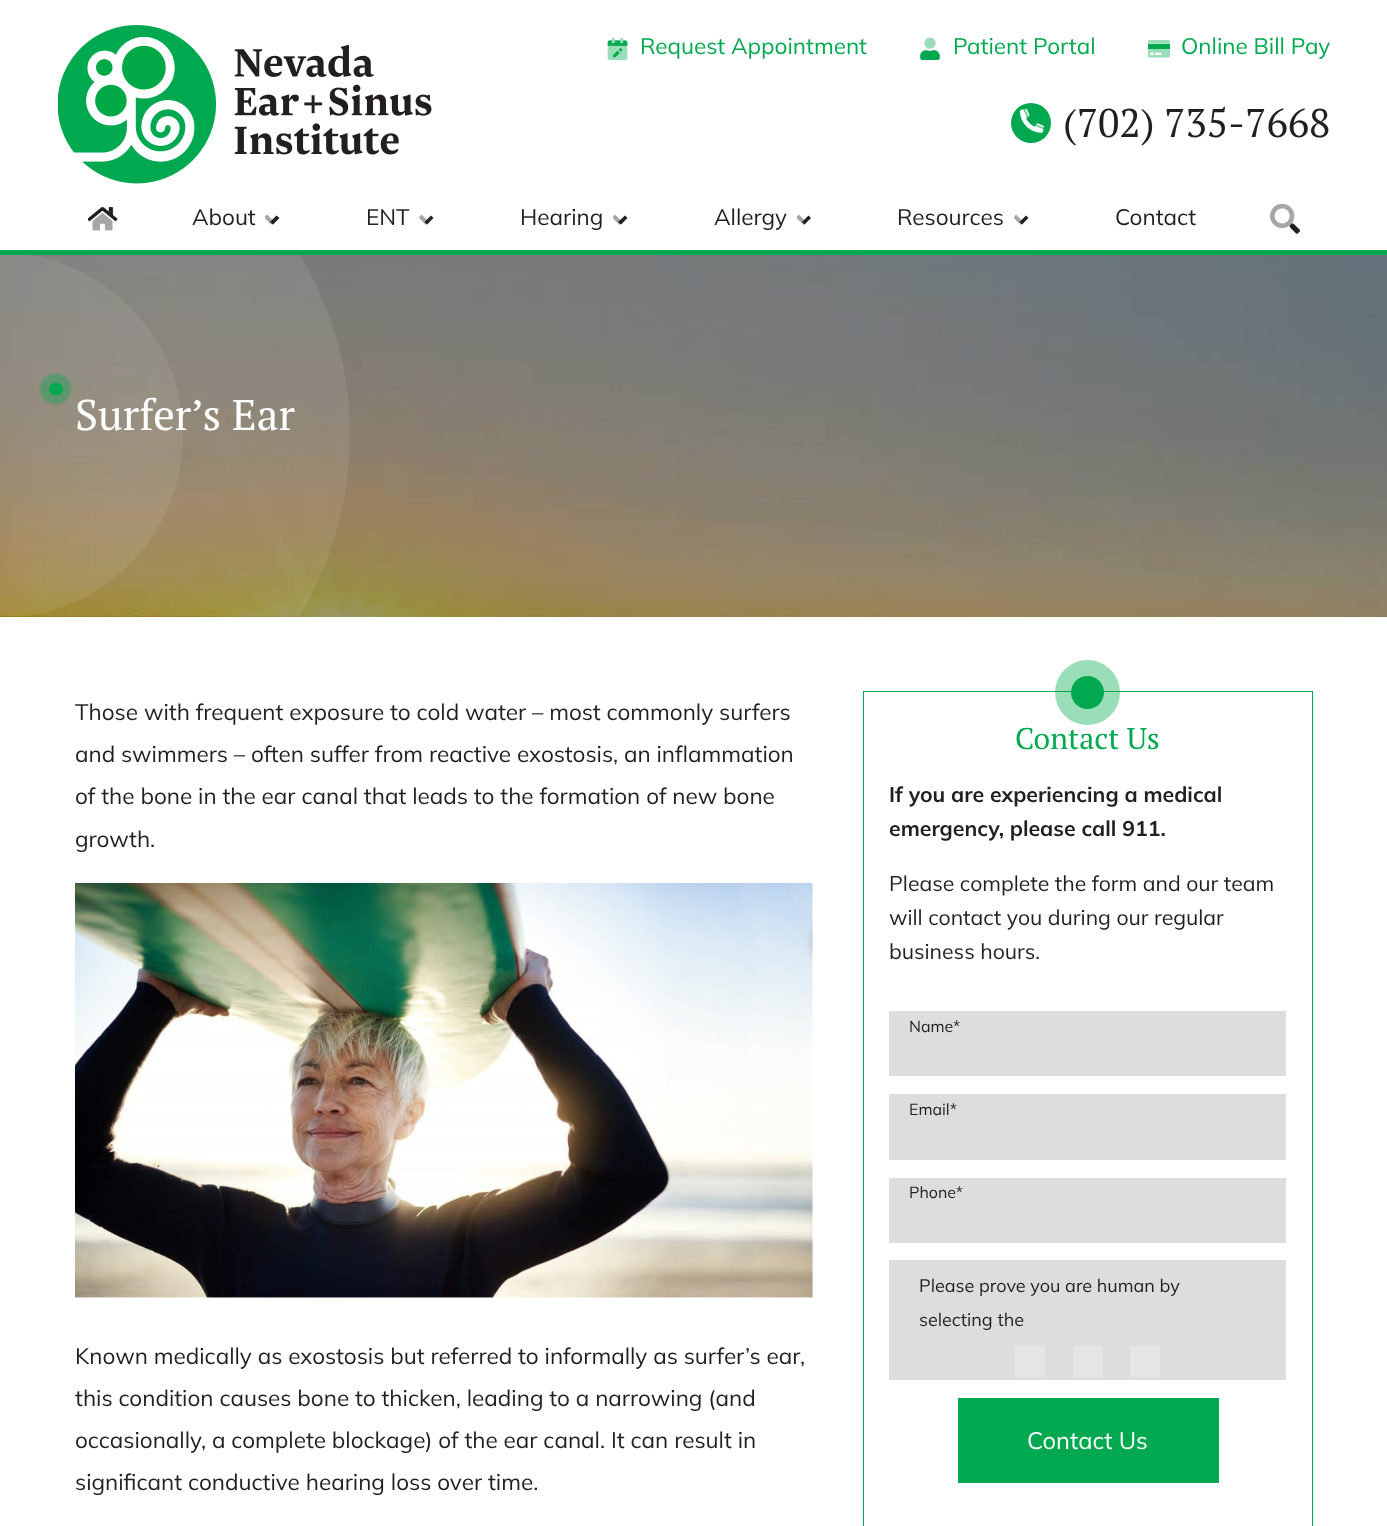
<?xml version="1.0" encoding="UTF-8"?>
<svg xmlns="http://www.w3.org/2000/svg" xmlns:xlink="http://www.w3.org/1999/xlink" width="1387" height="1526">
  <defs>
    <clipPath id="clip1"><rect y="255" width="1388" height="361" /></clipPath>
  </defs>
  <rect width="100%" height="100%" fill="#ffffff" />
  <image x="58" y="25" width="374" height="159" xlink:href="image1.png" />
  <image x="607" y="38" width="21" height="22" xlink:href="image2.png" />
  <image x="920" y="38" width="20" height="22" xlink:href="image3.png" />
  <image x="1148" y="40" width="22" height="18" xlink:href="image4.png" />
  <circle cx="1031" cy="123" r="20" fill="#00a94f" />
  <image x="1020" y="109" width="24" height="24" xlink:href="image5.png" />
  <image x="0" y="255" width="1387" height="362" xlink:href="image8.png" />
  <g clip-path="url(#clip1)">
    <circle cx="0" cy="435" r="350" fill="#ffffff" fill-opacity="0.08" />
    <circle cx="0.5" cy="435.5" r="182.5" fill="#ffffff" fill-opacity="0.08" />
  </g>
  <rect y="250" width="1387" height="5" fill="#00a94f" />
  <image x="88" y="207" width="30" height="24" xlink:href="image6.png" />
  <path d="M 265.5 216 c -2 2 1.5 4 2.5 5.5 c 3.5 3 3.5 4.5 7 1 l -8 -8 z" fill="#a7a5a6" />
  <path d="M 270 222 l 6.5 -6.5 l 3 2.5 l -6.5 6.5 z" fill="#231f20" />
  <path d="M 429.5 222.5 c -3.5 3.5 -4 2 -7 -1 c -3.5 -3.5 -4.5 -3.5 -1 -7 z" fill="#a7a5a6" />
  <path d="M 424.5 222 l 6.5 -6.5 l 2.5 2.5 l -6.5 6.5 z" fill="#231f20" />
  <path d="M 613.5 216 c -2 2 1.5 4 2.5 5.5 c 3.5 3 3.5 4.5 7 1 l -8 -8 z" fill="#a7a5a6" />
  <path d="M 618 222 l 7 -6.5 l 2.5 2.5 l -6.5 6.5 z" fill="#231f20" />
  <path d="M 797 218.5 c -1 -1.5 1 -3 2 -4 l 7.5 8 c -2.5 3 -3 2.5 -5.5 0 z" fill="#a7a5a6" />
  <path d="M 802 222 l 6.5 -6.5 l 2.5 2.5 l -6.5 6.5 z" fill="#231f20" />
  <path d="M 1014.5 218.5 c -1 -1.5 0.5 -3 1.5 -4 l 8 8 c -3 3 -3 2.5 -6 0 z" fill="#a7a5a6" />
  <path d="M 1019.5 222 l 6.5 -6.5 l 2.5 2.5 l -6.5 6.5 z" fill="#231f20" />
  <image x="1270" y="204" width="30" height="30" xlink:href="image7.png" />
  <rect x="40" y="374" width="31" height="30" rx="15" fill="#00a94f" fill-opacity="0.4" filter="blur(1px)" />
  <rect x="49" y="383" width="14" height="12" rx="6" fill="#00a94f" />
  <image x="75" y="883" width="738" height="415" xlink:href="image9.png" />
  <rect x="863.5" y="691.5" width="449" height="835" fill="none" stroke="#00a94f" />
  <rect x="1055" y="660" width="65" height="65" rx="32.5" fill="#00a94f" fill-opacity="0.4" filter="blur(0.5px)" />
  <circle cx="1087.5" cy="692.5" r="16.5" fill="#00a94f" />
  <rect x="889" y="1011" width="397" height="65" fill="#dddddd" />
  <rect x="889" y="1094" width="397" height="66" fill="#dddddd" />
  <rect x="889" y="1178" width="397" height="65" fill="#dddddd" />
  <rect x="889" y="1260" width="397" height="120" fill="#dddddd" />
  <rect x="1015" y="1346" width="30" height="31" fill="#e5e5e5" />
  <rect x="1073" y="1346" width="30" height="31" fill="#e5e5e5" />
  <rect x="1130" y="1346" width="30" height="31" fill="#e5e5e5" />
  <rect x="958" y="1398" width="261" height="85" fill="#00a94f" />
  <text x="640" y="54" style="font-family: Mulish; font-size: 22.5px; fill: #00a94f">Request Appointment</text>
  <text x="953" y="54" style="font-family: Mulish; font-size: 22.5px; fill: #00a94f">Patient Portal</text>
  <text x="1181" y="54" style="font-family: Mulish; font-size: 22.5px; fill: #00a94f">Online Bill Pay</text>
  <text x="1063" y="137" style="font-family: PT Serif; font-size: 40px; fill: #231f20">(702) 735-7668</text>
  <text x="192" y="225" style="font-family: Mulish; font-size: 22.5px; fill: #231f20">About</text>
  <text x="366" y="225" style="font-family: Mulish; font-size: 22.5px; fill: #231f20">ENT</text>
  <text x="520" y="225" style="font-family: Mulish; font-size: 22.5px; fill: #231f20">Hearing</text>
  <text x="714" y="225" style="font-family: Mulish; font-size: 22.5px; fill: #231f20">Allergy</text>
  <text x="897" y="225" style="font-family: Mulish; font-size: 22.5px; fill: #231f20">Resources</text>
  <text x="1115" y="225" style="font-family: Mulish; font-size: 22.5px; fill: #231f20">Contact</text>
  <text x="75" y="430" style="font-family: PT Serif; font-size: 43px; fill: #ffffff">Surfer’s Ear</text>
  <text x="75" y="720" style="font-family: Mulish; font-size: 22.5px; fill: #231f20">Those with frequent exposure to cold water – most commonly surfers</text>
  <text x="75" y="762" style="font-family: Mulish; font-size: 22.5px; fill: #231f20">and swimmers – often suffer from reactive exostosis, an inflammation</text>
  <text x="75" y="804" style="font-family: Mulish; font-size: 22.5px; fill: #231f20">of the bone in the ear canal that leads to the formation of new bone</text>
  <text x="75" y="847" style="font-family: Mulish; font-size: 22.5px; fill: #231f20">growth.</text>
  <text x="75" y="1364" style="font-family: Mulish; font-size: 22.5px; fill: #231f20">Known medically as exostosis but referred to informally as surfer’s ear,</text>
  <text x="75" y="1406" style="font-family: Mulish; font-size: 22.5px; fill: #231f20">this condition causes bone to thicken, leading to a narrowing (and</text>
  <text x="75" y="1448" style="font-family: Mulish; font-size: 22.5px; fill: #231f20">occasionally, a complete blockage) of the ear canal. It can result in</text>
  <text x="75" y="1490" style="font-family: Mulish; font-size: 22.5px; fill: #231f20">significant conductive hearing loss over time.</text>
  <text x="1015" y="749" style="font-family: PT Serif; font-size: 30px; fill: #00a94f">Contact Us</text>
  <text x="889" y="802" style="font-family: Mulish; font-size: 21.25px; font-weight: bold; fill: #231f20">If you are experiencing a medical</text>
  <text x="889" y="836" style="font-family: Mulish; font-size: 21.25px; font-weight: bold; fill: #231f20">emergency, please call 911.</text>
  <text x="889" y="891" style="font-family: Mulish; font-size: 21.25px; fill: #231f20">Please complete the form and our team</text>
  <text x="889" y="925" style="font-family: Mulish; font-size: 21.25px; fill: #231f20">will contact you during our regular</text>
  <text x="889" y="959" style="font-family: Mulish; font-size: 21.25px; fill: #231f20">business hours.</text>
  <text x="909" y="1032" style="font-family: Mulish; font-size: 16px; fill: #231f20">Name*</text>
  <text x="909" y="1115" style="font-family: Mulish; font-size: 16px; fill: #231f20">Email*</text>
  <text x="909" y="1198" style="font-family: Mulish; font-size: 16px; fill: #231f20">Phone*</text>
  <text x="919" y="1292" style="font-family: Mulish; font-size: 18px; fill: #231f20">Please prove you are human by</text>
  <text x="919" y="1326" style="font-family: Mulish; font-size: 18px; fill: #231f20">selecting the</text>
  <text x="1027" y="1449" style="font-family: Mulish; font-size: 23.75px; fill: #ffffff">Contact Us</text>
</svg>
